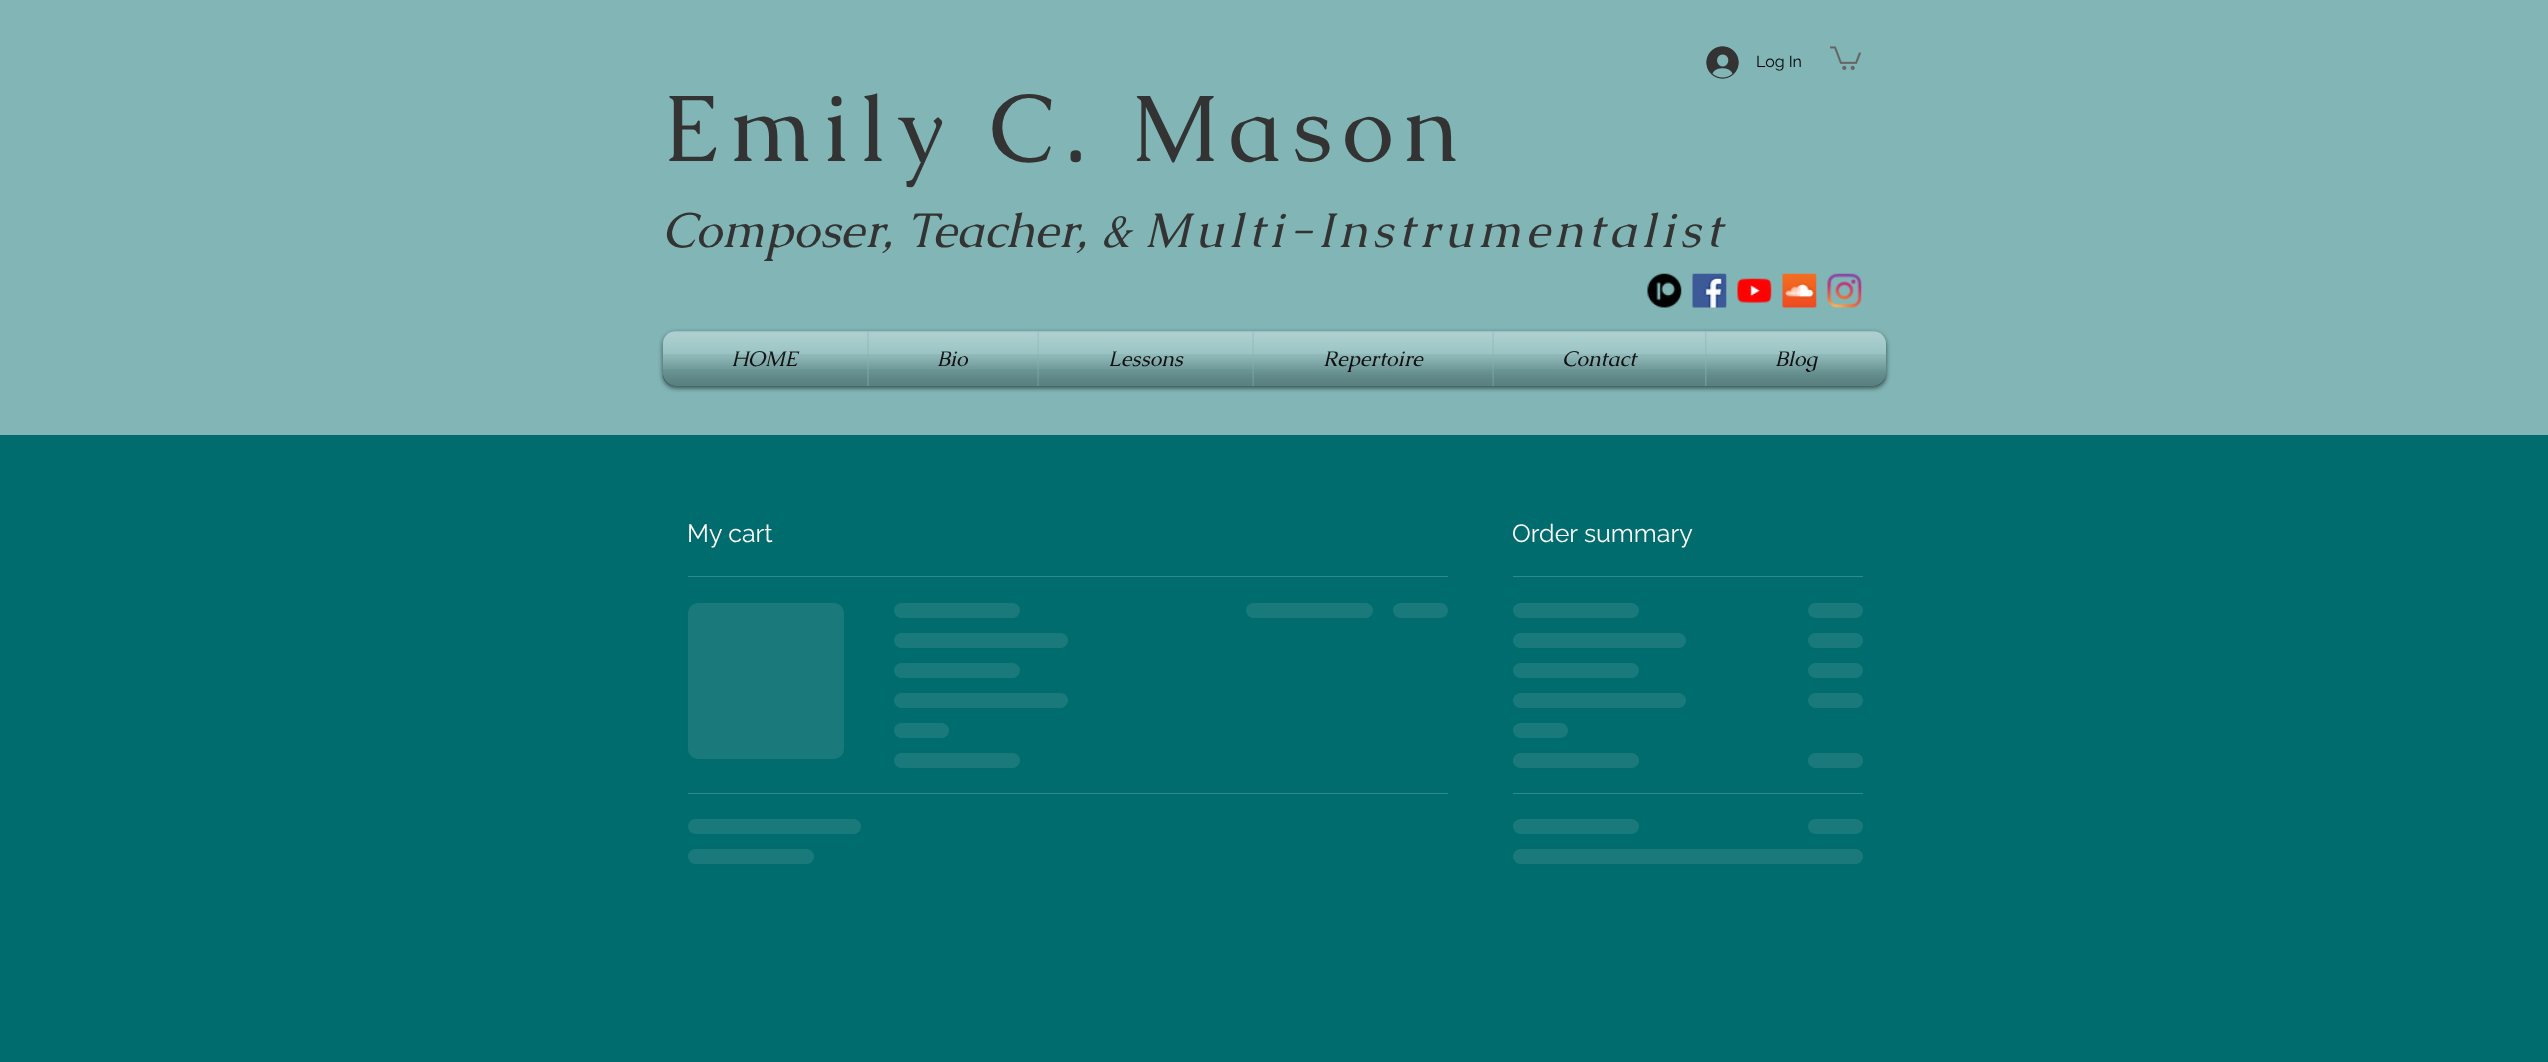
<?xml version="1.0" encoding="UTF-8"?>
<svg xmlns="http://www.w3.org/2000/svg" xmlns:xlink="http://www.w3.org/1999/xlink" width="2548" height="1062">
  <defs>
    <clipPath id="clip1"><path d="M 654 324 h 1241 v 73 h -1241 z m 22 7 h 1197 c 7 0 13 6 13 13 v 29 c 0 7 -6 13 -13 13 h -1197 c -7 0 -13 -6 -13 -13 v -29 c 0 -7 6 -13 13 -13 z" clip-rule="evenodd" /></clipPath>
    <linearGradient id="g1" gradientUnits="userSpaceOnUse" x1="688" y1="681" x2="1313" y2="681"><stop offset="0.25" stop-color="#1a7a7b" /><stop offset="0.37" stop-color="#33898a" /><stop offset="0.63" stop-color="#1a7a7b" /></linearGradient>
    <linearGradient id="g2" gradientUnits="userSpaceOnUse" x1="894" y1="610" x2="1399" y2="610"><stop offset="0.25" stop-color="#1a7a7b" /><stop offset="0.37" stop-color="#33898a" /><stop offset="0.63" stop-color="#1a7a7b" /></linearGradient>
    <linearGradient id="g3" gradientUnits="userSpaceOnUse" x1="894" y1="640" x2="1589" y2="640"><stop offset="0.25" stop-color="#1a7a7b" /><stop offset="0.37" stop-color="#33898a" /><stop offset="0.63" stop-color="#1a7a7b" /></linearGradient>
    <linearGradient id="g4" gradientUnits="userSpaceOnUse" x1="894" y1="670" x2="1399" y2="670"><stop offset="0.25" stop-color="#1a7a7b" /><stop offset="0.37" stop-color="#33898a" /><stop offset="0.63" stop-color="#1a7a7b" /></linearGradient>
    <linearGradient id="g5" gradientUnits="userSpaceOnUse" x1="894" y1="700" x2="1589" y2="700"><stop offset="0.25" stop-color="#1a7a7b" /><stop offset="0.37" stop-color="#33898a" /><stop offset="0.63" stop-color="#1a7a7b" /></linearGradient>
    <linearGradient id="g6" gradientUnits="userSpaceOnUse" x1="894" y1="730" x2="1114" y2="730"><stop offset="0.25" stop-color="#1a7a7b" /><stop offset="0.37" stop-color="#33898a" /><stop offset="0.63" stop-color="#1a7a7b" /></linearGradient>
    <linearGradient id="g7" gradientUnits="userSpaceOnUse" x1="894" y1="760" x2="1399" y2="760"><stop offset="0.25" stop-color="#1a7a7b" /><stop offset="0.37" stop-color="#33898a" /><stop offset="0.63" stop-color="#1a7a7b" /></linearGradient>
    <linearGradient id="g8" gradientUnits="userSpaceOnUse" x1="1246" y1="610" x2="1751" y2="610"><stop offset="0.25" stop-color="#1a7a7b" /><stop offset="0.37" stop-color="#33898a" /><stop offset="0.63" stop-color="#1a7a7b" /></linearGradient>
    <linearGradient id="g9" gradientUnits="userSpaceOnUse" x1="1393" y1="610" x2="1613" y2="610"><stop offset="0.25" stop-color="#1a7a7b" /><stop offset="0.37" stop-color="#33898a" /><stop offset="0.63" stop-color="#1a7a7b" /></linearGradient>
    <linearGradient id="g10" gradientUnits="userSpaceOnUse" x1="688" y1="826" x2="1383" y2="826"><stop offset="0.25" stop-color="#1a7a7b" /><stop offset="0.37" stop-color="#33898a" /><stop offset="0.63" stop-color="#1a7a7b" /></linearGradient>
    <linearGradient id="g11" gradientUnits="userSpaceOnUse" x1="688" y1="856" x2="1193" y2="856"><stop offset="0.25" stop-color="#1a7a7b" /><stop offset="0.37" stop-color="#33898a" /><stop offset="0.63" stop-color="#1a7a7b" /></linearGradient>
    <linearGradient id="g12" gradientUnits="userSpaceOnUse" x1="1513" y1="610" x2="2018" y2="610"><stop offset="0.25" stop-color="#1a7a7b" /><stop offset="0.37" stop-color="#33898a" /><stop offset="0.63" stop-color="#1a7a7b" /></linearGradient>
    <linearGradient id="g13" gradientUnits="userSpaceOnUse" x1="1808" y1="610" x2="2028" y2="610"><stop offset="0.25" stop-color="#1a7a7b" /><stop offset="0.37" stop-color="#33898a" /><stop offset="0.63" stop-color="#1a7a7b" /></linearGradient>
    <linearGradient id="g14" gradientUnits="userSpaceOnUse" x1="1513" y1="640" x2="2208" y2="640"><stop offset="0.25" stop-color="#1a7a7b" /><stop offset="0.37" stop-color="#33898a" /><stop offset="0.63" stop-color="#1a7a7b" /></linearGradient>
    <linearGradient id="g15" gradientUnits="userSpaceOnUse" x1="1808" y1="640" x2="2028" y2="640"><stop offset="0.25" stop-color="#1a7a7b" /><stop offset="0.37" stop-color="#33898a" /><stop offset="0.63" stop-color="#1a7a7b" /></linearGradient>
    <linearGradient id="g16" gradientUnits="userSpaceOnUse" x1="1513" y1="670" x2="2018" y2="670"><stop offset="0.25" stop-color="#1a7a7b" /><stop offset="0.37" stop-color="#33898a" /><stop offset="0.63" stop-color="#1a7a7b" /></linearGradient>
    <linearGradient id="g17" gradientUnits="userSpaceOnUse" x1="1808" y1="670" x2="2028" y2="670"><stop offset="0.25" stop-color="#1a7a7b" /><stop offset="0.37" stop-color="#33898a" /><stop offset="0.63" stop-color="#1a7a7b" /></linearGradient>
    <linearGradient id="g18" gradientUnits="userSpaceOnUse" x1="1513" y1="700" x2="2208" y2="700"><stop offset="0.25" stop-color="#1a7a7b" /><stop offset="0.37" stop-color="#33898a" /><stop offset="0.63" stop-color="#1a7a7b" /></linearGradient>
    <linearGradient id="g19" gradientUnits="userSpaceOnUse" x1="1808" y1="700" x2="2028" y2="700"><stop offset="0.25" stop-color="#1a7a7b" /><stop offset="0.37" stop-color="#33898a" /><stop offset="0.63" stop-color="#1a7a7b" /></linearGradient>
    <linearGradient id="g20" gradientUnits="userSpaceOnUse" x1="1513" y1="730" x2="1733" y2="730"><stop offset="0.25" stop-color="#1a7a7b" /><stop offset="0.37" stop-color="#33898a" /><stop offset="0.63" stop-color="#1a7a7b" /></linearGradient>
    <linearGradient id="g21" gradientUnits="userSpaceOnUse" x1="1513" y1="760" x2="2018" y2="760"><stop offset="0.25" stop-color="#1a7a7b" /><stop offset="0.37" stop-color="#33898a" /><stop offset="0.63" stop-color="#1a7a7b" /></linearGradient>
    <linearGradient id="g22" gradientUnits="userSpaceOnUse" x1="1808" y1="760" x2="2028" y2="760"><stop offset="0.25" stop-color="#1a7a7b" /><stop offset="0.37" stop-color="#33898a" /><stop offset="0.63" stop-color="#1a7a7b" /></linearGradient>
    <linearGradient id="g23" gradientUnits="userSpaceOnUse" x1="1513" y1="826" x2="2018" y2="826"><stop offset="0.25" stop-color="#1a7a7b" /><stop offset="0.37" stop-color="#33898a" /><stop offset="0.63" stop-color="#1a7a7b" /></linearGradient>
    <linearGradient id="g24" gradientUnits="userSpaceOnUse" x1="1808" y1="826" x2="2028" y2="826"><stop offset="0.25" stop-color="#1a7a7b" /><stop offset="0.37" stop-color="#33898a" /><stop offset="0.63" stop-color="#1a7a7b" /></linearGradient>
    <linearGradient id="g25" gradientUnits="userSpaceOnUse" x1="1513" y1="856" x2="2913" y2="856"><stop offset="0.25" stop-color="#1a7a7b" /><stop offset="0.37" stop-color="#33898a" /><stop offset="0.63" stop-color="#1a7a7b" /></linearGradient>
  </defs>
  <rect width="100%" height="100%" fill="#006c6d" />
  <rect width="2548" height="435" fill="#82b6b6" />
  <image x="1706" y="46" width="33" height="33" xlink:href="image1.png" />
  <image x="1830" y="46" width="32" height="24" xlink:href="image2.png" />
  <image x="1647" y="273" width="35" height="35" xlink:href="image3.png" />
  <image x="1692" y="273" width="35" height="35" xlink:href="image4.png" />
  <image x="1737" y="278" width="35" height="26" xlink:href="image5.png" />
  <image x="1782" y="273" width="35" height="35" xlink:href="image6.png" />
  <image x="1827" y="273" width="35" height="35" xlink:href="image7.png" />
  <g clip-path="url(#clip1)">
    <rect x="663" y="333" width="1223" height="55" rx="13" fill="#000000" fill-opacity="0.6" filter="blur(2.5px)" />
  </g>
  <image x="662" y="331" width="1224" height="38" xlink:href="image8.png" />
  <image x="663" y="354" width="1223" height="32" xlink:href="image9.png" />
  <rect x="688" y="576" width="760" height="1" fill="#33898a" />
  <rect x="688" y="603" width="156" height="156" rx="10" fill="url(#g1)" />
  <rect x="894" y="603" width="126" height="15" rx="7.5" fill="url(#g2)" />
  <rect x="894" y="633" width="174" height="15" rx="7.5" fill="url(#g3)" />
  <rect x="894" y="663" width="126" height="15" rx="7.5" fill="url(#g4)" />
  <rect x="894" y="693" width="174" height="15" rx="7.5" fill="url(#g5)" />
  <rect x="894" y="723" width="55" height="15" rx="7.5" fill="url(#g6)" />
  <rect x="894" y="753" width="126" height="15" rx="7.5" fill="url(#g7)" />
  <rect x="1246" y="603" width="127" height="15" rx="7.5" fill="url(#g8)" />
  <rect x="1393" y="603" width="55" height="15" rx="7.5" fill="url(#g9)" />
  <rect x="688" y="793" width="760" height="1" fill="#33898a" />
  <rect x="688" y="819" width="173" height="15" rx="7.5" fill="url(#g10)" />
  <rect x="688" y="849" width="126" height="15" rx="7.5" fill="url(#g11)" />
  <rect x="1513" y="576" width="350" height="1" fill="#33898a" />
  <rect x="1513" y="603" width="126" height="15" rx="7.5" fill="url(#g12)" />
  <rect x="1808" y="603" width="55" height="15" rx="7.5" fill="url(#g13)" />
  <rect x="1513" y="633" width="173" height="15" rx="7.5" fill="url(#g14)" />
  <rect x="1808" y="633" width="55" height="15" rx="7.5" fill="url(#g15)" />
  <rect x="1513" y="663" width="126" height="15" rx="7.5" fill="url(#g16)" />
  <rect x="1808" y="663" width="55" height="15" rx="7.5" fill="url(#g17)" />
  <rect x="1513" y="693" width="173" height="15" rx="7.5" fill="url(#g18)" />
  <rect x="1808" y="693" width="55" height="15" rx="7.5" fill="url(#g19)" />
  <rect x="1513" y="723" width="55" height="15" rx="7.5" fill="url(#g20)" />
  <rect x="1513" y="753" width="126" height="15" rx="7.5" fill="url(#g21)" />
  <rect x="1808" y="753" width="55" height="15" rx="7.5" fill="url(#g22)" />
  <rect x="1513" y="793" width="350" height="1" fill="#33898a" />
  <rect x="1513" y="819" width="126" height="15" rx="7.5" fill="url(#g23)" />
  <rect x="1808" y="819" width="55" height="15" rx="7.5" fill="url(#g24)" />
  <rect x="1513" y="849" width="350" height="15" rx="7.5" fill="url(#g25)" />
  <text x="1756" y="67" style="font-family: Raleway; font-size: 16px; fill: #000000">Log In</text>
  <text x="662" y="161" style="font-family: Caudex; font-size: 95px; letter-spacing: 9.5px; fill: #333333">Emily C. Mason</text>
  <text x="662" y="247" style="font-family: Caudex; font-size: 48.75px; font-style: italic; fill: #333333">Composer, Teacher, &amp;</text>
  <text x="1144" y="247" style="font-family: Caudex; font-size: 48.75px; font-style: italic; letter-spacing: 4.9px; fill: #333333">Multi-Instrumentalist</text>
  <text x="731" y="366" style="font-family: Caudex; font-size: 21.25px; font-style: italic; fill: #000000">HOME</text>
  <image x="663" y="331" width="205" height="38" xlink:href="image10.png" />
  <image x="663" y="354" width="205" height="32" xlink:href="image11.png" />
  <text x="937" y="366" style="font-family: Caudex; font-size: 21.25px; font-style: italic; fill: #000000">Bio</text>
  <image x="868" y="331" width="170" height="38" xlink:href="image12.png" />
  <image x="868" y="354" width="170" height="32" xlink:href="image13.png" />
  <text x="1108" y="366" style="font-family: Caudex; font-size: 21.25px; font-style: italic; fill: #000000">Lessons</text>
  <image x="1038" y="331" width="215" height="38" xlink:href="image14.png" />
  <image x="1038" y="354" width="215" height="32" xlink:href="image15.png" />
  <text x="1323" y="366" style="font-family: Caudex; font-size: 21.25px; font-style: italic; fill: #000000">Repertoire</text>
  <image x="1253" y="331" width="240" height="41" xlink:href="image16.png" />
  <image x="1253" y="354" width="240" height="32" xlink:href="image17.png" />
  <text x="1562" y="366" style="font-family: Caudex; font-size: 21.25px; font-style: italic; fill: #000000">Contact</text>
  <image x="1493" y="331" width="212" height="38" xlink:href="image18.png" />
  <image x="1493" y="354" width="212" height="32" xlink:href="image19.png" />
  <text x="1775" y="366" style="font-family: Caudex; font-size: 21.25px; font-style: italic; fill: #000000">Blog</text>
  <image x="1706" y="331" width="180" height="41" xlink:href="image20.png" />
  <image x="1706" y="354" width="180" height="32" xlink:href="image21.png" />
  <text x="687" y="542" style="font-family: Raleway; font-size: 25px; fill: #fffcfc">My cart</text>
  <text x="1512" y="542" style="font-family: Raleway; font-size: 25px; fill: #fffcfc">Order summary</text>
</svg>
